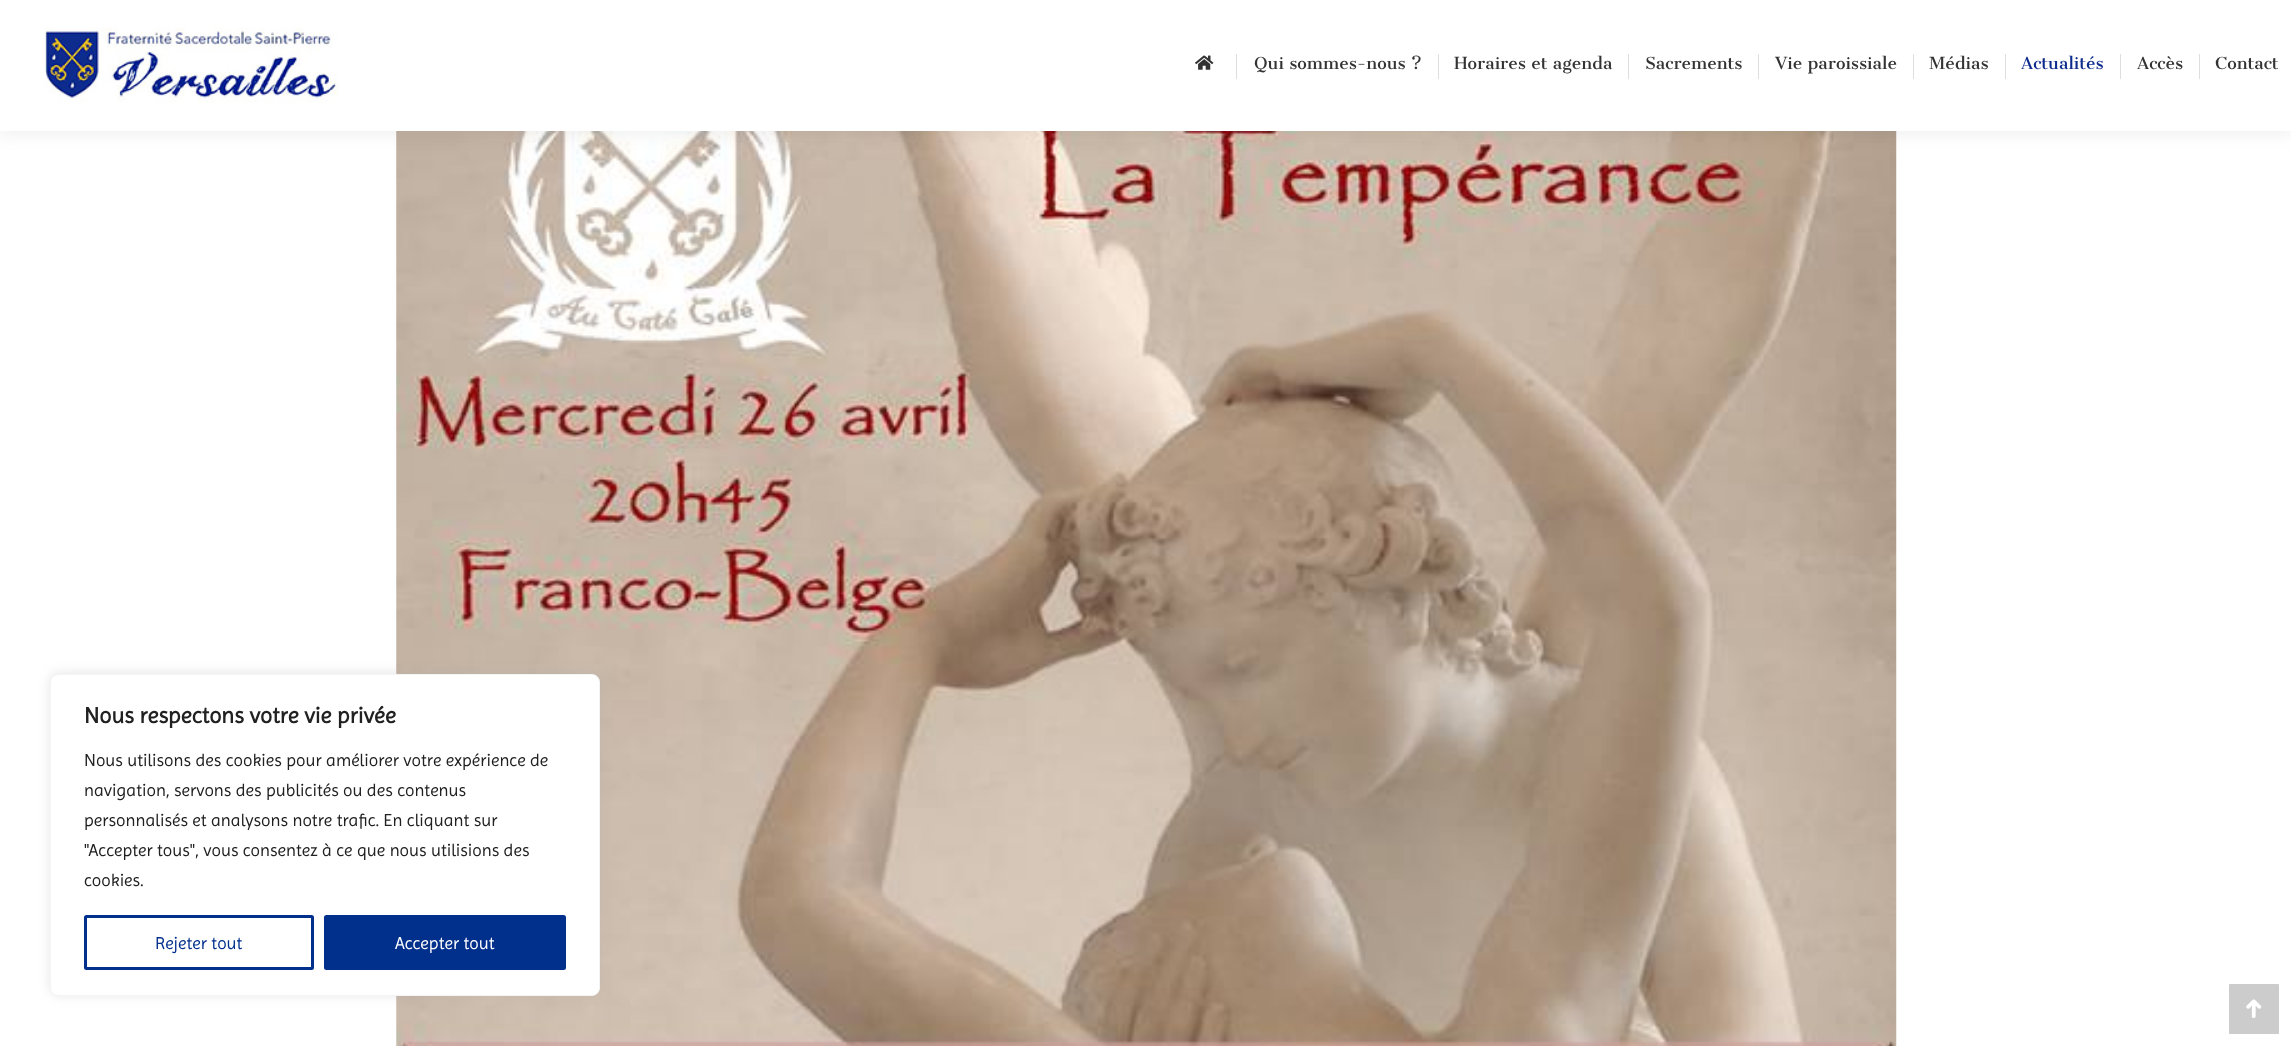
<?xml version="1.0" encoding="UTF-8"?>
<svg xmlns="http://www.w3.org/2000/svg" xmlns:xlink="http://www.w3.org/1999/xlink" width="2291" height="1046">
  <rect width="100%" height="100%" fill="#ffffff" />
  <image x="396" y="131" width="1501" height="915" xlink:href="image3.png" />
  <rect x="-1" y="-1" width="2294" height="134" fill="#000000" fill-opacity="0.07" filter="blur(9.5px)" />
  <rect width="2291" height="131" fill="#ffffff" />
  <image x="44" y="27" width="295" height="76" xlink:href="image1.png" />
  <image x="1195" y="55" width="19" height="15" xlink:href="image2.png" />
  <rect x="1236" y="54" width="1" height="25" fill="#dedede" />
  <rect x="1438" y="54" width="1" height="25" fill="#dedede" />
  <rect x="1628" y="54" width="1" height="25" fill="#dedede" />
  <rect x="1758" y="54" width="1" height="25" fill="#dedede" />
  <rect x="1913" y="54" width="1" height="25" fill="#dedede" />
  <rect x="2005" y="54" width="1" height="25" fill="#dedede" />
  <rect x="2120" y="54" width="1" height="25" fill="#dedede" />
  <rect x="2199" y="54" width="1" height="25" fill="#dedede" />
  <rect x="50" y="673" width="550" height="322" rx="8" fill="#acabab" fill-opacity="0.3" filter="blur(6px)" />
  <rect x="50.5" y="674.5" width="549" height="321" rx="7.5" fill="#ffffff" stroke="#f4f4f4" />
  <rect x="85.5" y="916.5" width="227" height="52" rx="1" fill="none" stroke="#002f8c" stroke-width="3" />
  <rect x="325.5" y="916.5" width="239" height="52" rx="1" fill="#002f8c" stroke="#002f8c" stroke-width="3" />
  <rect x="2229" y="984" width="50" height="50" rx="1" fill="#cccccc" />
  <image x="2246" y="999" width="16" height="19" xlink:href="image4.png" />
  <text x="1254" y="69" style="font-family: Cantata One; font-size: 16.25px; fill: #333333">Qui sommes-nous ?</text>
  <text x="1454" y="69" style="font-family: Cantata One; font-size: 16.25px; fill: #333333">Horaires et agenda</text>
  <text x="1645" y="69" style="font-family: Cantata One; font-size: 16.25px; fill: #333333">Sacrements</text>
  <text x="1775" y="69" style="font-family: Cantata One; font-size: 16.25px; fill: #333333">Vie paroissiale</text>
  <text x="1929" y="69" style="font-family: Cantata One; font-size: 16.25px; fill: #333333">Médias</text>
  <text x="2021" y="69" style="font-family: Cantata One; font-size: 16.25px; fill: #0e2c8e">Actualités</text>
  <text x="2137" y="69" style="font-family: Cantata One; font-size: 16.25px; fill: #333333">Accès</text>
  <text x="2215" y="69" style="font-family: Cantata One; font-size: 16.25px; fill: #333333">Contact</text>
  <text x="84" y="723" style="font-family: Imprima; font-size: 22.5px; font-weight: bold; fill: #212121">Nous respectons votre vie privée</text>
  <text x="84" y="766" style="font-family: Imprima; font-size: 17.5px; fill: #212121">Nous utilisons des cookies pour améliorer votre expérience de</text>
  <text x="84" y="796" style="font-family: Imprima; font-size: 17.5px; fill: #212121">navigation, servons des publicités ou des contenus</text>
  <text x="84" y="826" style="font-family: Imprima; font-size: 17.5px; fill: #212121">personnalisés et analysons notre trafic. En cliquant sur</text>
  <text x="84" y="856" style="font-family: Imprima; font-size: 17.5px; fill: #212121">"Accepter tous", vous consentez à ce que nous utilisions des</text>
  <text x="84" y="886" style="font-family: Imprima; font-size: 17.5px; fill: #212121">cookies.</text>
  <text x="155" y="949" style="font-family: Imprima; font-size: 17.5px; fill: #002f8c">Rejeter tout</text>
  <text x="395" y="949" style="font-family: Imprima; font-size: 17.5px; fill: #ffffff">Accepter tout</text>
</svg>
